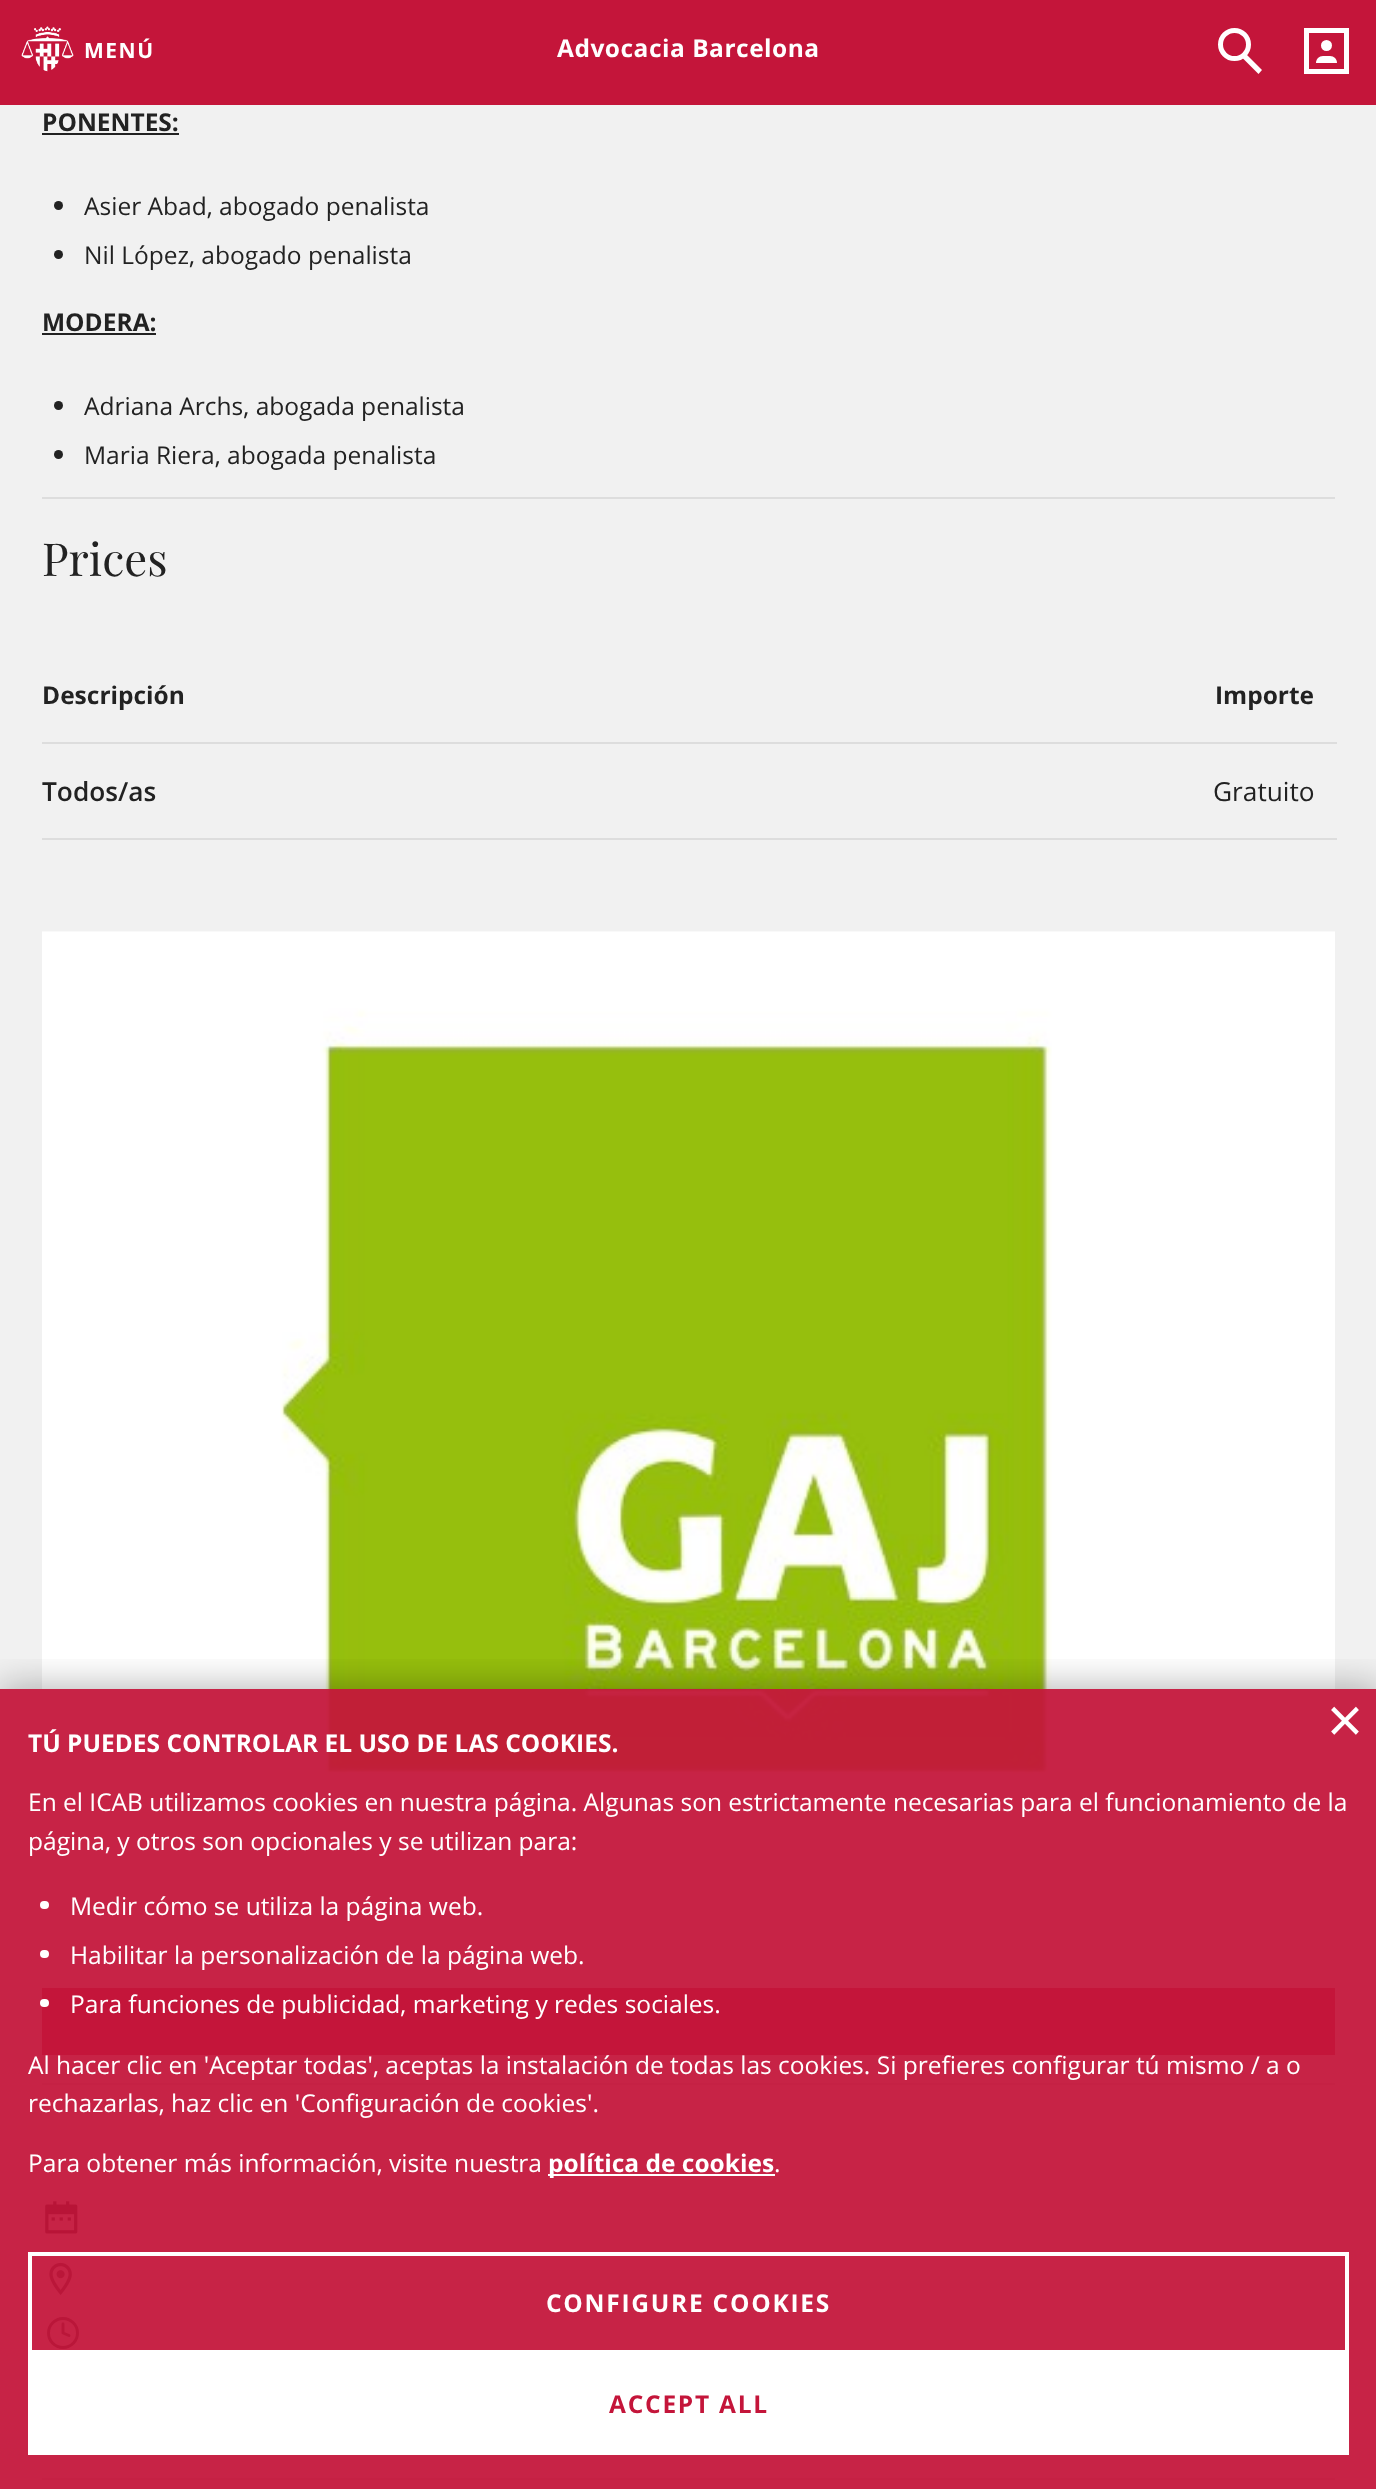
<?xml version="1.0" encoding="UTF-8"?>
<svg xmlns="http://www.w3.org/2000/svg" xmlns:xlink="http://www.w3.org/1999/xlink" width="1376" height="2489">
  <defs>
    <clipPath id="clip1"><rect x="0" y="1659" width="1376" height="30" /></clipPath>
  </defs>
  <rect width="100%" height="100%" fill="#f1f1f1" />
  <rect width="1376" height="105" fill="#c4153a" />
  <image x="21" y="26" width="53" height="46" xlink:href="image1.png" />
  <circle cx="1234.5" cy="44.5" r="14" fill="none" stroke="#ffffff" stroke-width="5" />
  <path d="M 1246 54 l 16 16 l -3.5 4 l -16.5 -16.5 z" fill="#ffffff" />
  <rect x="1306.5" y="30.5" width="40" height="41" fill="none" stroke="#ffffff" stroke-width="5" />
  <circle cx="1326.5" cy="45.5" r="5.5" fill="#ffffff" />
  <path d="M 1323 56 h 7 c 4 0 7 3 7 7 h -21 c 0 -4 3 -7 7 -7 z" fill="#ffffff" />
  <rect x="42" y="133" width="137" height="2" fill="#222222" />
  <circle cx="58.5" cy="205.5" r="4.5" fill="#222222" />
  <circle cx="58.5" cy="254.5" r="4.5" fill="#222222" />
  <rect x="42" y="333" width="114" height="2" fill="#222222" />
  <circle cx="58.5" cy="405.5" r="4.5" fill="#222222" />
  <circle cx="58.5" cy="454.5" r="4.5" fill="#222222" />
  <rect x="42" y="497" width="1293" height="2" fill="#dddddd" />
  <rect x="42" y="742" width="1295" height="2" fill="#dddddd" />
  <rect x="42" y="838" width="1295" height="2" fill="#dddddd" />
  <image x="42" y="931" width="1293" height="1036" xlink:href="image2.png" />
  <rect x="42" y="1988" width="1293" height="67" fill="#c4153a" />
  <rect x="42" y="2083" width="1293" height="2" fill="#dddddd" />
  <image x="45" y="2201" width="33" height="33" xlink:href="image3.png" />
  <image x="49" y="2262" width="23" height="33" xlink:href="image4.png" />
  <circle cx="63" cy="2333" r="14.5" fill="none" stroke="#222222" stroke-width="2.9" />
  <path d="M 63 2324 v 9 l 6 2.5" fill="none" stroke="#222222" stroke-width="2.9" stroke-linecap="round" stroke-linejoin="round" />
  <rect x="42" y="2478" width="1293" height="2" fill="#dddddd" />
  <g clip-path="url(#clip1)">
    <rect y="1687" width="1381" height="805" fill="#000000" fill-opacity="0.3" filter="blur(18.5px)" />
  </g>
  <rect y="1689" width="1376" height="800" fill="#c4153a" fill-opacity="0.94" />
  <rect x="40" y="1901" width="9" height="8" rx="4" fill="#ffffff" />
  <rect x="40" y="1950" width="9" height="8" rx="4" fill="#ffffff" />
  <rect x="40" y="1999" width="9" height="8" rx="4" fill="#ffffff" />
  <rect x="548" y="2174" width="227" height="2" fill="#ffffff" />
  <rect x="30" y="2254" width="1317" height="98" fill="none" stroke="#ffffff" stroke-width="4" />
  <rect x="28" y="2354" width="1321" height="101" fill="#ffffff" />
  <text x="84" y="58" style="font-family: Open Sans; font-size: 21px; font-weight: bold; letter-spacing: 1.5px; fill: #ffffff">MENÚ</text>
  <text x="557" y="57" style="font-family: Open Sans; font-size: 24.5px; font-weight: bold; letter-spacing: 0.5px; fill: #ffffff">Advocacia Barcelona</text>
  <text x="42" y="131" style="font-family: Open Sans; font-size: 24.5px; font-weight: bold; fill: #222222">PONENTES:</text>
  <text x="84" y="215" style="font-family: Open Sans; font-size: 24.5px; fill: #222222">Asier Abad, abogado penalista</text>
  <text x="84" y="264" style="font-family: Open Sans; font-size: 24.5px; fill: #222222">Nil López, abogado penalista</text>
  <text x="42" y="331" style="font-family: Open Sans; font-size: 24.5px; font-weight: bold; fill: #222222">MODERA:</text>
  <text x="84" y="415" style="font-family: Open Sans; font-size: 24.5px; fill: #222222">Adriana Archs, abogada penalista</text>
  <text x="84" y="464" style="font-family: Open Sans; font-size: 24.5px; fill: #222222">Maria Riera, abogada penalista</text>
  <text x="42" y="576" style="font-family: Playfair Display; font-size: 45.5px; fill: #222222">Prices</text>
  <text x="42" y="704" style="font-family: Open Sans; font-size: 24.5px; font-weight: bold; fill: #222222">Descripción</text>
  <text x="1215" y="704" style="font-family: Open Sans; font-size: 24.5px; font-weight: bold; fill: #222222">Importe</text>
  <text x="42" y="801" style="font-family: Open Sans; font-size: 26.25px; font-weight: 600; fill: #222222">Todos/as</text>
  <text x="1213" y="801" style="font-family: Open Sans; font-size: 26.25px; fill: #222222">Gratuito</text>
  <text x="1327" y="1743" style="font-family: Open Sans; font-size: 63px; fill: #ffffff">×</text>
  <text x="28" y="1752" style="font-family: Open Sans; font-size: 24.5px; font-weight: bold; fill: #ffffff">TÚ PUEDES CONTROLAR EL USO DE LAS COOKIES.</text>
  <text x="28" y="1811" style="font-family: Open Sans; font-size: 24.5px; fill: #ffffff">En el ICAB utilizamos cookies en nuestra página. Algunas son estrictamente necesarias para el funcionamiento de la</text>
  <text x="28" y="1850" style="font-family: Open Sans; font-size: 24.5px; fill: #ffffff">página, y otros son opcionales y se utilizan para:</text>
  <text x="70" y="1915" style="font-family: Open Sans; font-size: 24.5px; fill: #ffffff">Medir cómo se utiliza la página web.</text>
  <text x="70" y="1964" style="font-family: Open Sans; font-size: 24.5px; fill: #ffffff">Habilitar la personalización de la página web.</text>
  <text x="70" y="2013" style="font-family: Open Sans; font-size: 24.5px; fill: #ffffff">Para funciones de publicidad, marketing y redes sociales.</text>
  <text x="28" y="2074" style="font-family: Open Sans; font-size: 24.5px; fill: #ffffff">Al hacer clic en 'Aceptar todas', aceptas la instalación de todas las cookies. Si prefieres configurar tú mismo / a o</text>
  <text x="28" y="2112" style="font-family: Open Sans; font-size: 24.5px; fill: #ffffff">rechazarlas, haz clic en 'Configuración de cookies'.</text>
  <text x="28" y="2172" style="font-family: Open Sans; font-size: 24.5px; fill: #ffffff">Para obtener más información, visite nuestra</text>
  <text x="548" y="2172" style="font-family: Open Sans; font-size: 24.5px; font-weight: bold; fill: #ffffff">política de cookies</text>
  <text x="774" y="2172" style="font-family: Open Sans; font-size: 24.5px; fill: #ffffff">.</text>
  <text x="546" y="2312" style="font-family: Open Sans; font-size: 24.5px; font-weight: bold; letter-spacing: 1.75px; fill: #ffffff">CONFIGURE COOKIES</text>
  <text x="609" y="2413" style="font-family: Open Sans; font-size: 24.5px; font-weight: bold; letter-spacing: 1.75px; fill: #c4153a">ACCEPT ALL</text>
</svg>
